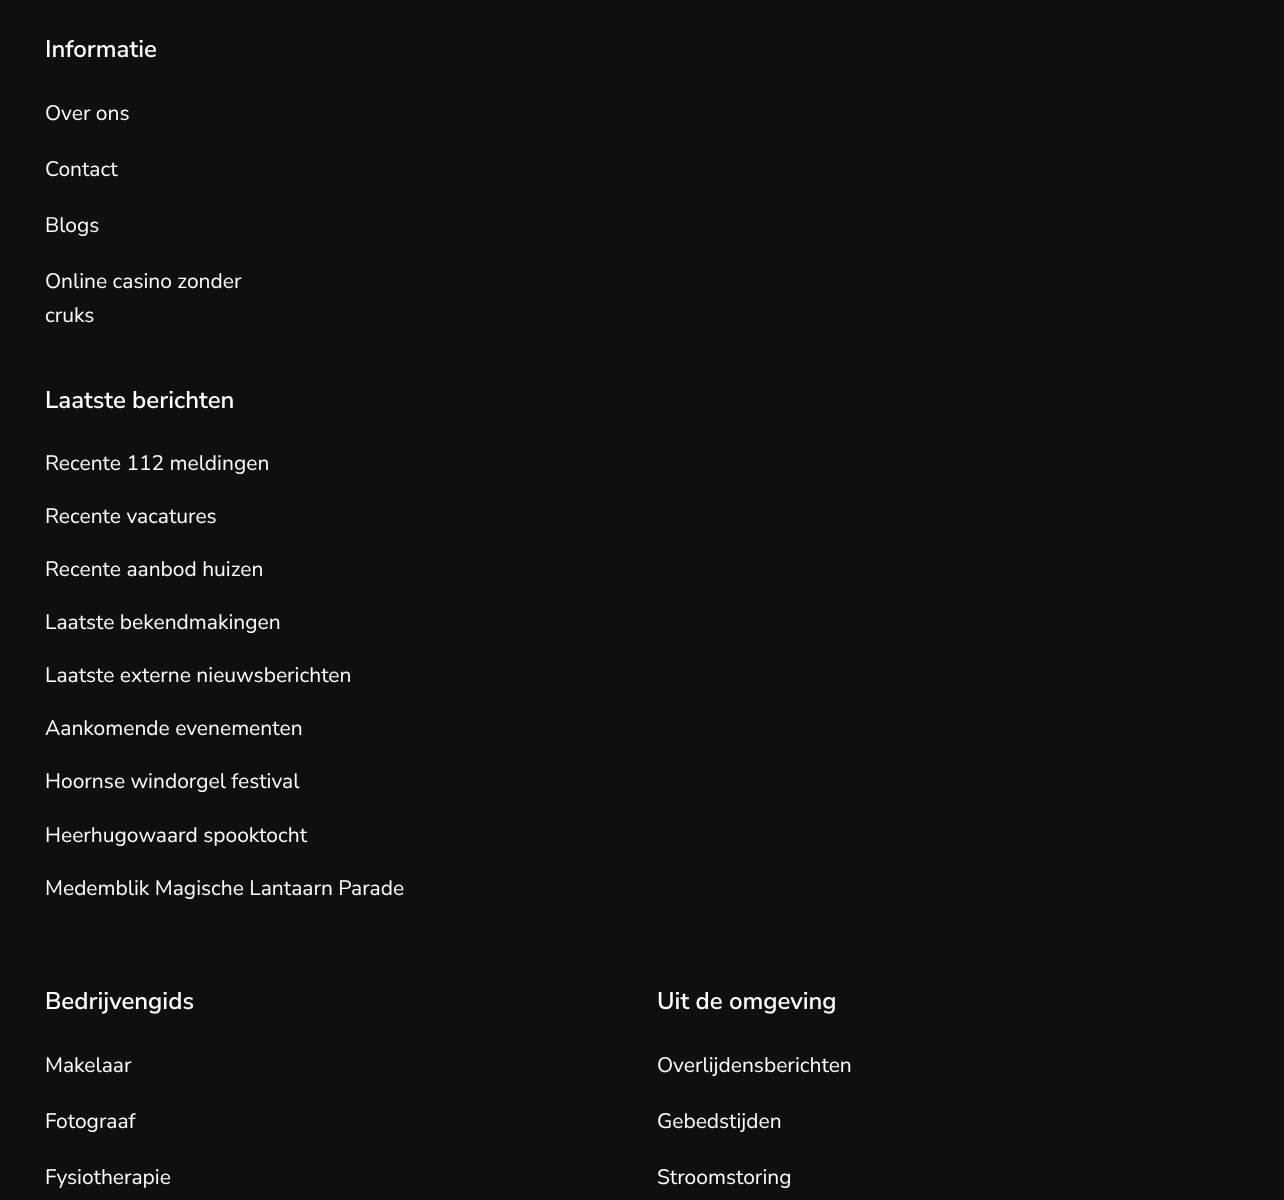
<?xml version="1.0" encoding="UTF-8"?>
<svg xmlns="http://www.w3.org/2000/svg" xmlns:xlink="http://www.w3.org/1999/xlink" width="1284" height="1200">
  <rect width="100%" height="100%" fill="#0f0f0f" />
  <text x="45" y="57" style="font-family: Nunito Sans; font-size: 24px; font-weight: 600; fill: #ffffff">Informatie</text>
  <text x="45" y="120" style="font-family: Nunito Sans; font-size: 21px; fill: #ffffff">Over ons</text>
  <text x="45" y="176" style="font-family: Nunito Sans; font-size: 21px; fill: #ffffff">Contact</text>
  <text x="45" y="232" style="font-family: Nunito Sans; font-size: 21px; fill: #ffffff">Blogs</text>
  <text x="45" y="288" style="font-family: Nunito Sans; font-size: 21px; fill: #ffffff">Online casino zonder</text>
  <text x="45" y="322" style="font-family: Nunito Sans; font-size: 21px; fill: #ffffff">cruks</text>
  <text x="45" y="408" style="font-family: Nunito Sans; font-size: 24px; font-weight: 600; fill: #ffffff">Laatste berichten</text>
  <text x="45" y="470" style="font-family: Nunito Sans; font-size: 21px; fill: #ffffff">Recente 112 meldingen</text>
  <text x="45" y="523" style="font-family: Nunito Sans; font-size: 21px; fill: #ffffff">Recente vacatures</text>
  <text x="45" y="576" style="font-family: Nunito Sans; font-size: 21px; fill: #ffffff">Recente aanbod huizen</text>
  <text x="45" y="629" style="font-family: Nunito Sans; font-size: 21px; fill: #ffffff">Laatste bekendmakingen</text>
  <text x="45" y="682" style="font-family: Nunito Sans; font-size: 21px; fill: #ffffff">Laatste externe nieuwsberichten</text>
  <text x="45" y="735" style="font-family: Nunito Sans; font-size: 21px; fill: #ffffff">Aankomende evenementen</text>
  <text x="45" y="788" style="font-family: Nunito Sans; font-size: 21px; fill: #ffffff">Hoornse windorgel festival</text>
  <text x="45" y="842" style="font-family: Nunito Sans; font-size: 21px; fill: #ffffff">Heerhugowaard spooktocht</text>
  <text x="45" y="895" style="font-family: Nunito Sans; font-size: 21px; fill: #ffffff">Medemblik Magische Lantaarn Parade</text>
  <text x="45" y="1009" style="font-family: Nunito Sans; font-size: 24px; font-weight: 600; fill: #ffffff">Bedrijvengids</text>
  <text x="45" y="1072" style="font-family: Nunito Sans; font-size: 21px; fill: #ffffff">Makelaar</text>
  <text x="45" y="1128" style="font-family: Nunito Sans; font-size: 21px; fill: #ffffff">Fotograaf</text>
  <text x="45" y="1184" style="font-family: Nunito Sans; font-size: 21px; fill: #ffffff">Fysiotherapie</text>
  <text x="657" y="1009" style="font-family: Nunito Sans; font-size: 24px; font-weight: 600; fill: #ffffff">Uit de omgeving</text>
  <text x="657" y="1072" style="font-family: Nunito Sans; font-size: 21px; fill: #ffffff">Overlijdensberichten</text>
  <text x="657" y="1128" style="font-family: Nunito Sans; font-size: 21px; fill: #ffffff">Gebedstijden</text>
  <text x="657" y="1184" style="font-family: Nunito Sans; font-size: 21px; fill: #ffffff">Stroomstoring</text>
</svg>
